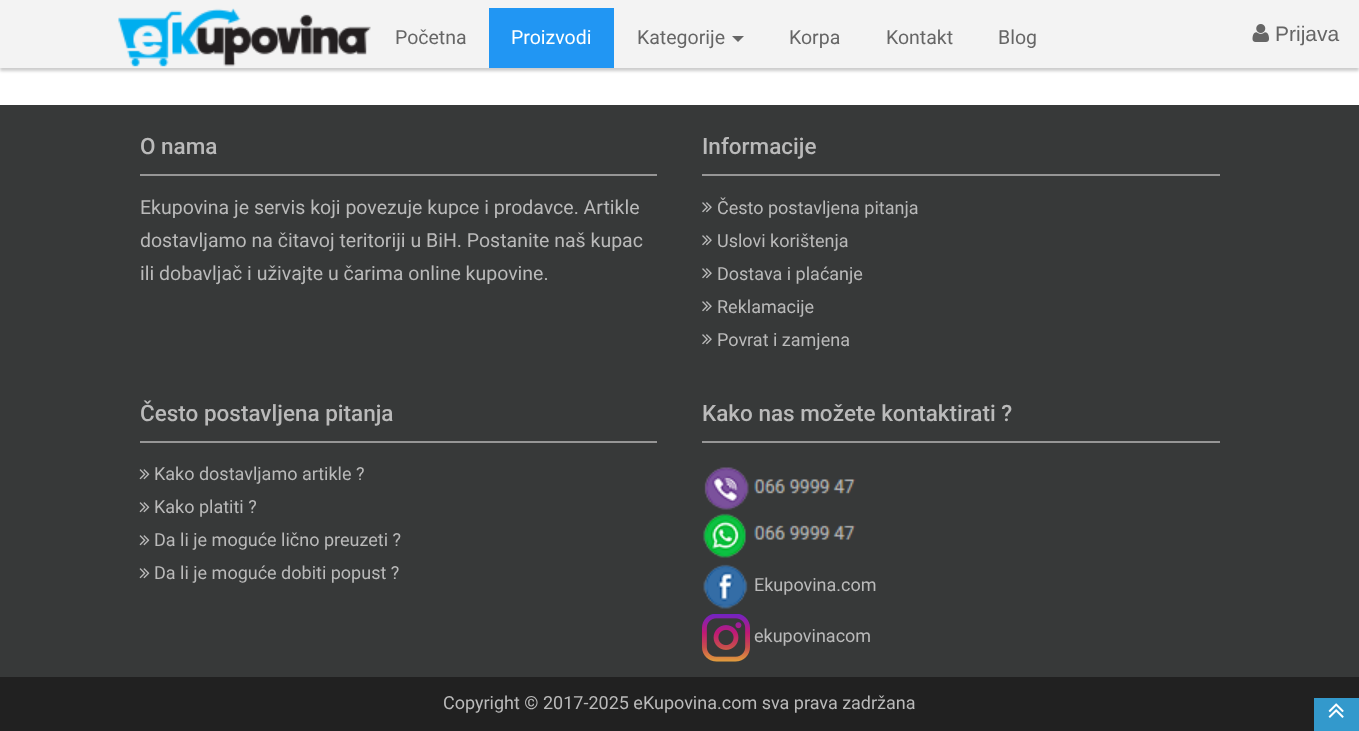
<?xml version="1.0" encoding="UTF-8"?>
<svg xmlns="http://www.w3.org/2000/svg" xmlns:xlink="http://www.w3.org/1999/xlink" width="1359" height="731">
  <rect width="100%" height="100%" fill="#ffffff" />
  <rect y="3" width="1359" height="68" fill="#000000" fill-opacity="0.2" filter="blur(1.5px)" />
  <rect width="1359" height="68" fill="#f3f3f3" />
  <image x="118" y="8" width="253" height="59" xlink:href="image1.png" />
  <rect x="489" y="8" width="125" height="60" fill="#2196f3" />
  <path d="M 732 36 h 12 l -6 6 z" fill="#666666" />
  <image x="1252" y="24" width="17" height="18" xlink:href="image2.png" />
  <rect y="105" width="1359" height="572" fill="#373939" />
  <rect x="140" y="174" width="517" height="2" fill="#969696" />
  <rect x="702" y="174" width="518" height="2" fill="#969696" />
  <image x="702" y="202" width="10" height="11" xlink:href="image3.png" />
  <image x="702" y="235" width="10" height="11" xlink:href="image3.png" />
  <image x="702" y="268" width="10" height="11" xlink:href="image3.png" />
  <image x="702" y="301" width="10" height="11" xlink:href="image3.png" />
  <image x="702" y="334" width="10" height="11" xlink:href="image3.png" />
  <rect x="140" y="441" width="517" height="2" fill="#969696" />
  <image x="139" y="469" width="11" height="11" xlink:href="image4.png" />
  <image x="139" y="502" width="11" height="11" xlink:href="image4.png" />
  <image x="139" y="535" width="11" height="11" xlink:href="image4.png" />
  <image x="139" y="568" width="11" height="11" xlink:href="image4.png" />
  <rect x="702" y="441" width="518" height="2" fill="#969696" />
  <image x="703" y="467" width="153" height="91" xlink:href="image5.png" />
  <image x="703" y="564" width="45" height="45" xlink:href="image6.png" />
  <image x="702" y="614" width="48" height="48" xlink:href="image7.png" />
  <rect y="677" width="1359" height="54" fill="#212121" />
  <rect x="1314" y="698" width="45" height="33" fill="#3399cc" />
  <image x="1328" y="703" width="16" height="15" xlink:href="image8.png" />
  <text x="395" y="44" style="font-family: Roboto; font-size: 19.5px; fill: #666666">Početna</text>
  <text x="511" y="44" style="font-family: Roboto; font-size: 19.5px; fill: #ffffff">Proizvodi</text>
  <text x="637" y="44" style="font-family: Roboto; font-size: 19.5px; fill: #666666">Kategorije</text>
  <text x="789" y="44" style="font-family: Roboto; font-size: 19.5px; fill: #666666">Korpa</text>
  <text x="886" y="44" style="font-family: Roboto; font-size: 19.5px; fill: #666666">Kontakt</text>
  <text x="998" y="44" style="font-family: Roboto; font-size: 19.5px; fill: #666666">Blog</text>
  <text x="1275" y="41" style="font-family: Liberation Sans; font-size: 21px; fill: #666666">Prijava</text>
  <text x="140" y="154" style="font-family: Roboto; font-size: 22.5px; font-weight: 500; fill: #bababa">O nama</text>
  <text x="140" y="214" style="font-family: Roboto; font-size: 19.5px; fill: #bababa">Ekupovina je servis koji povezuje kupce i prodavce. Artikle</text>
  <text x="140" y="247" style="font-family: Roboto; font-size: 19.5px; fill: #bababa">dostavljamo na čitavoj teritoriji u BiH. Postanite naš kupac</text>
  <text x="140" y="280" style="font-family: Roboto; font-size: 19.5px; fill: #bababa">ili dobavljač i uživajte u čarima online kupovine.</text>
  <text x="702" y="154" style="font-family: Roboto; font-size: 22.5px; font-weight: 500; fill: #bababa">Informacije</text>
  <text x="717" y="214" style="font-family: Roboto; font-size: 18px; fill: #bababa">Često postavljena pitanja</text>
  <text x="717" y="247" style="font-family: Roboto; font-size: 18px; fill: #bababa">Uslovi korištenja</text>
  <text x="717" y="280" style="font-family: Roboto; font-size: 18px; fill: #bababa">Dostava i plaćanje</text>
  <text x="717" y="313" style="font-family: Roboto; font-size: 18px; fill: #bababa">Reklamacije</text>
  <text x="717" y="346" style="font-family: Roboto; font-size: 18px; fill: #bababa">Povrat i zamjena</text>
  <text x="140" y="421" style="font-family: Roboto; font-size: 22.5px; font-weight: 500; fill: #bababa">Često postavljena pitanja</text>
  <text x="154" y="480" style="font-family: Roboto; font-size: 18px; fill: #bababa">Kako dostavljamo artikle ?</text>
  <text x="154" y="513" style="font-family: Roboto; font-size: 18px; fill: #bababa">Kako platiti ?</text>
  <text x="154" y="546" style="font-family: Roboto; font-size: 18px; fill: #bababa">Da li je moguće lično preuzeti ?</text>
  <text x="154" y="579" style="font-family: Roboto; font-size: 18px; fill: #bababa">Da li je moguće dobiti popust ?</text>
  <text x="702" y="421" style="font-family: Roboto; font-size: 22.5px; font-weight: 500; fill: #bababa">Kako nas možete kontaktirati ?</text>
  <text x="754" y="591" style="font-family: Roboto; font-size: 18px; fill: #bababa">Ekupovina.com</text>
  <text x="754" y="642" style="font-family: Roboto; font-size: 18px; fill: #bababa">ekupovinacom</text>
  <text x="443" y="709" style="font-family: Roboto; font-size: 18px; fill: #bababa">Copyright © 2017-2025 eKupovina.com sva prava zadržana</text>
</svg>
